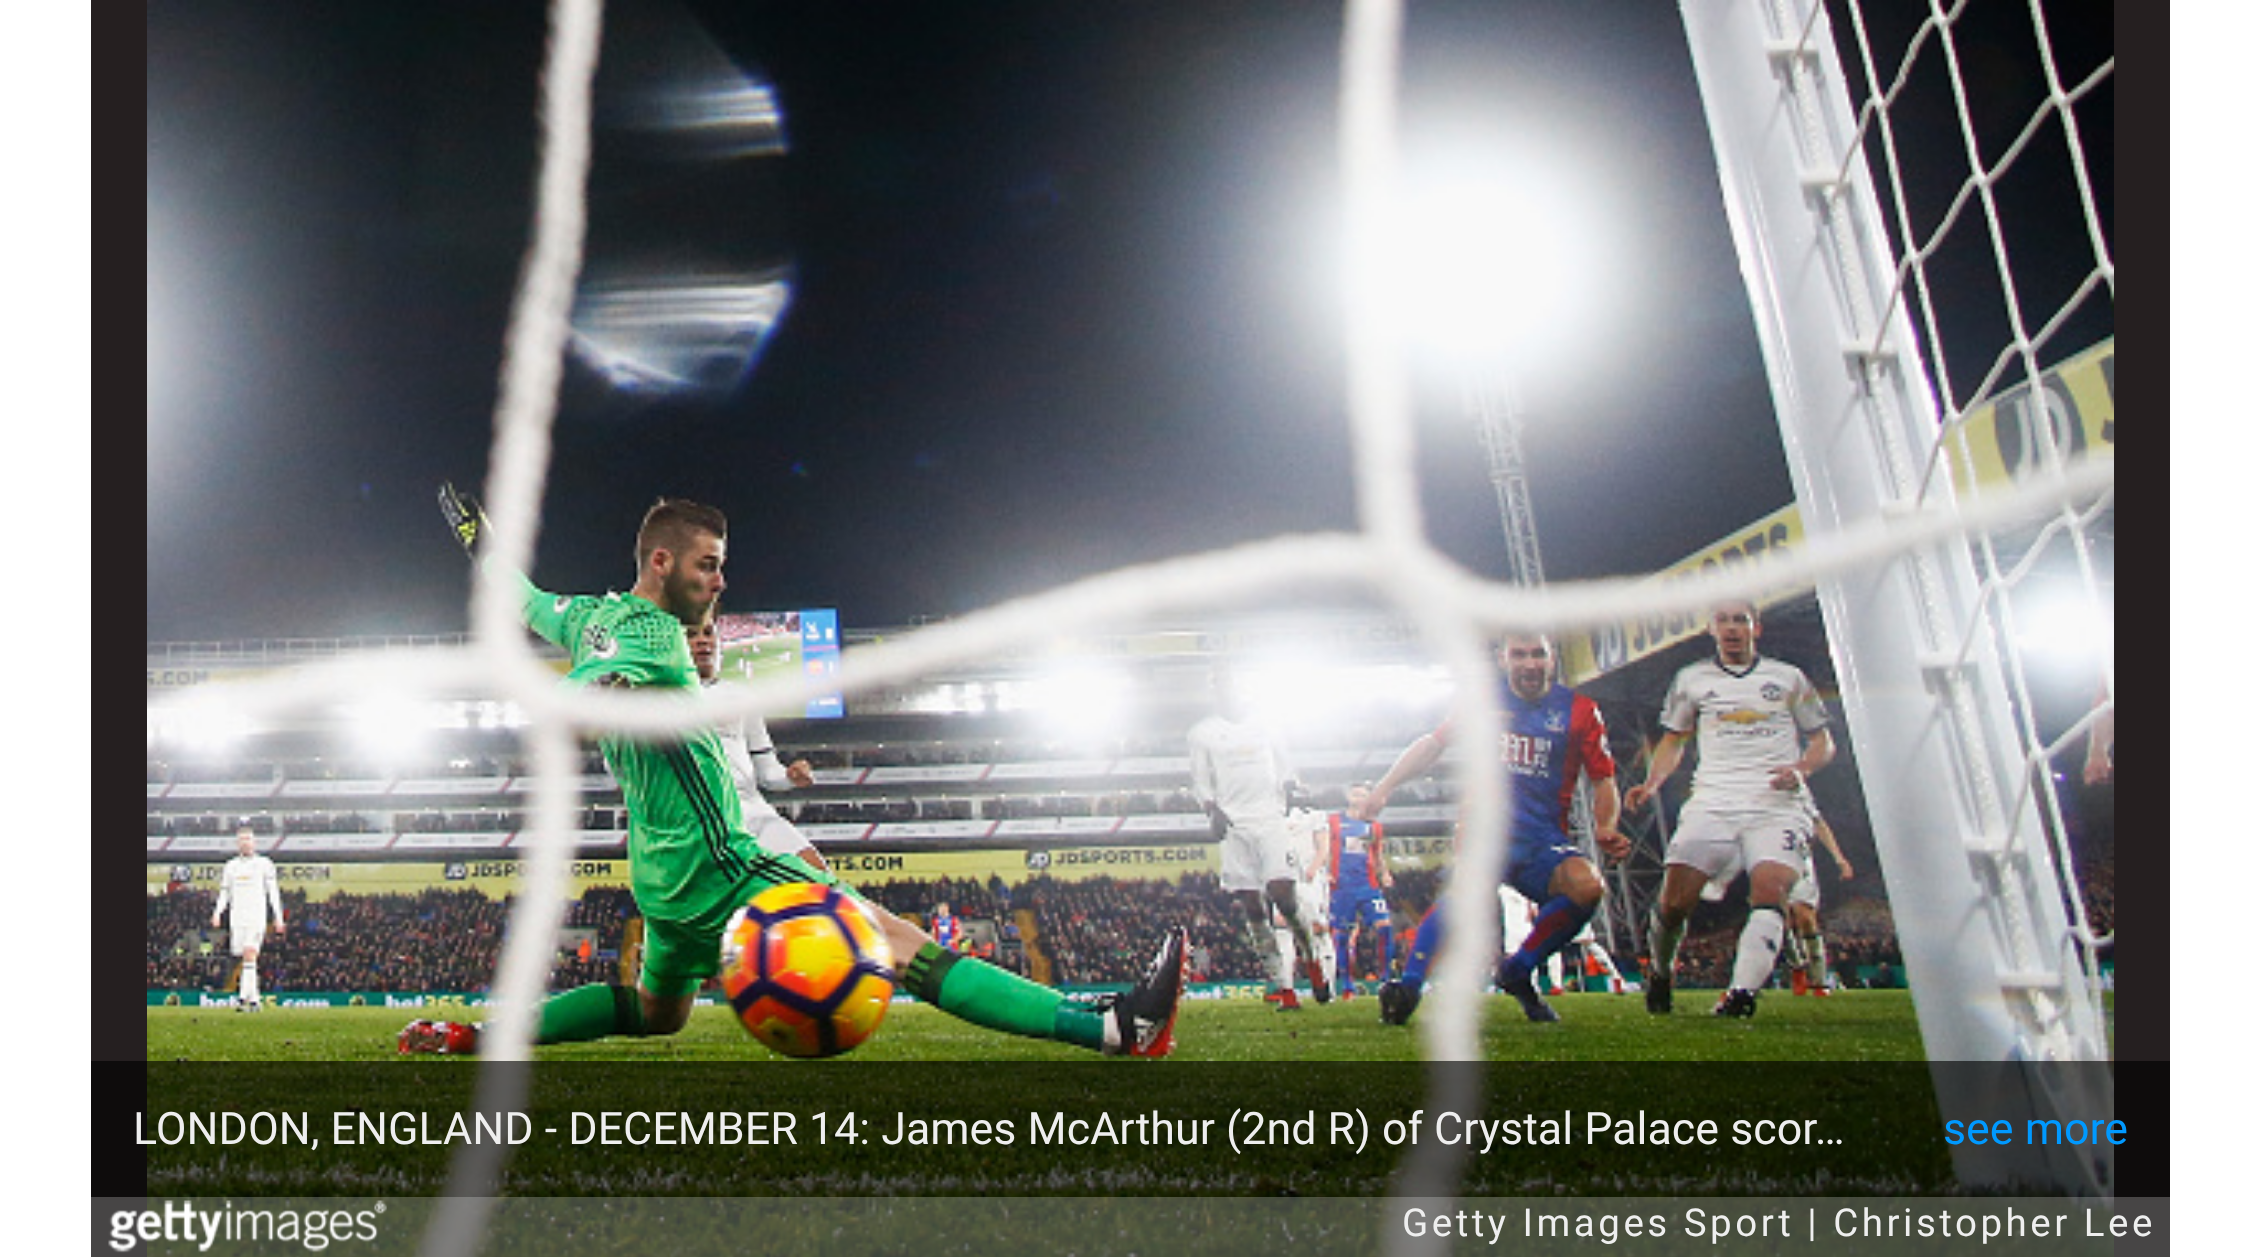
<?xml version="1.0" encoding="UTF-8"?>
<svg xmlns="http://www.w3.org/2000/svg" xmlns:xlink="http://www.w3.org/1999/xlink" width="2261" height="1257">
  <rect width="100%" height="100%" fill="#ffffff" />
  <rect x="91" width="2079" height="1257" fill="#251f20" />
  <image x="147" y="0" width="1967" height="1257" xlink:href="image1.png" />
  <rect x="91" y="1061" width="2079" height="136" fill="#000000" fill-opacity="0.6" />
  <rect x="91" y="1197" width="2079" height="60" fill="#555555" fill-opacity="0.7" />
  <image x="108" y="1200" width="279" height="53" xlink:href="image2.png" />
  <text x="133" y="1144" style="font-family: Roboto; font-size: 44.8px; fill: #eeeeee">LONDON, ENGLAND - DECEMBER 14: James McArthur (2nd R) of Crystal Palace scor…</text>
  <text x="1943" y="1144" style="font-family: Roboto; font-size: 44.8px; fill: #0099ff">see more</text>
  <text x="1402" y="1236" style="font-family: Roboto; font-size: 38.5px; letter-spacing: 3.5px; fill: #eeeeee">Getty Images Sport | Christopher Lee</text>
</svg>
